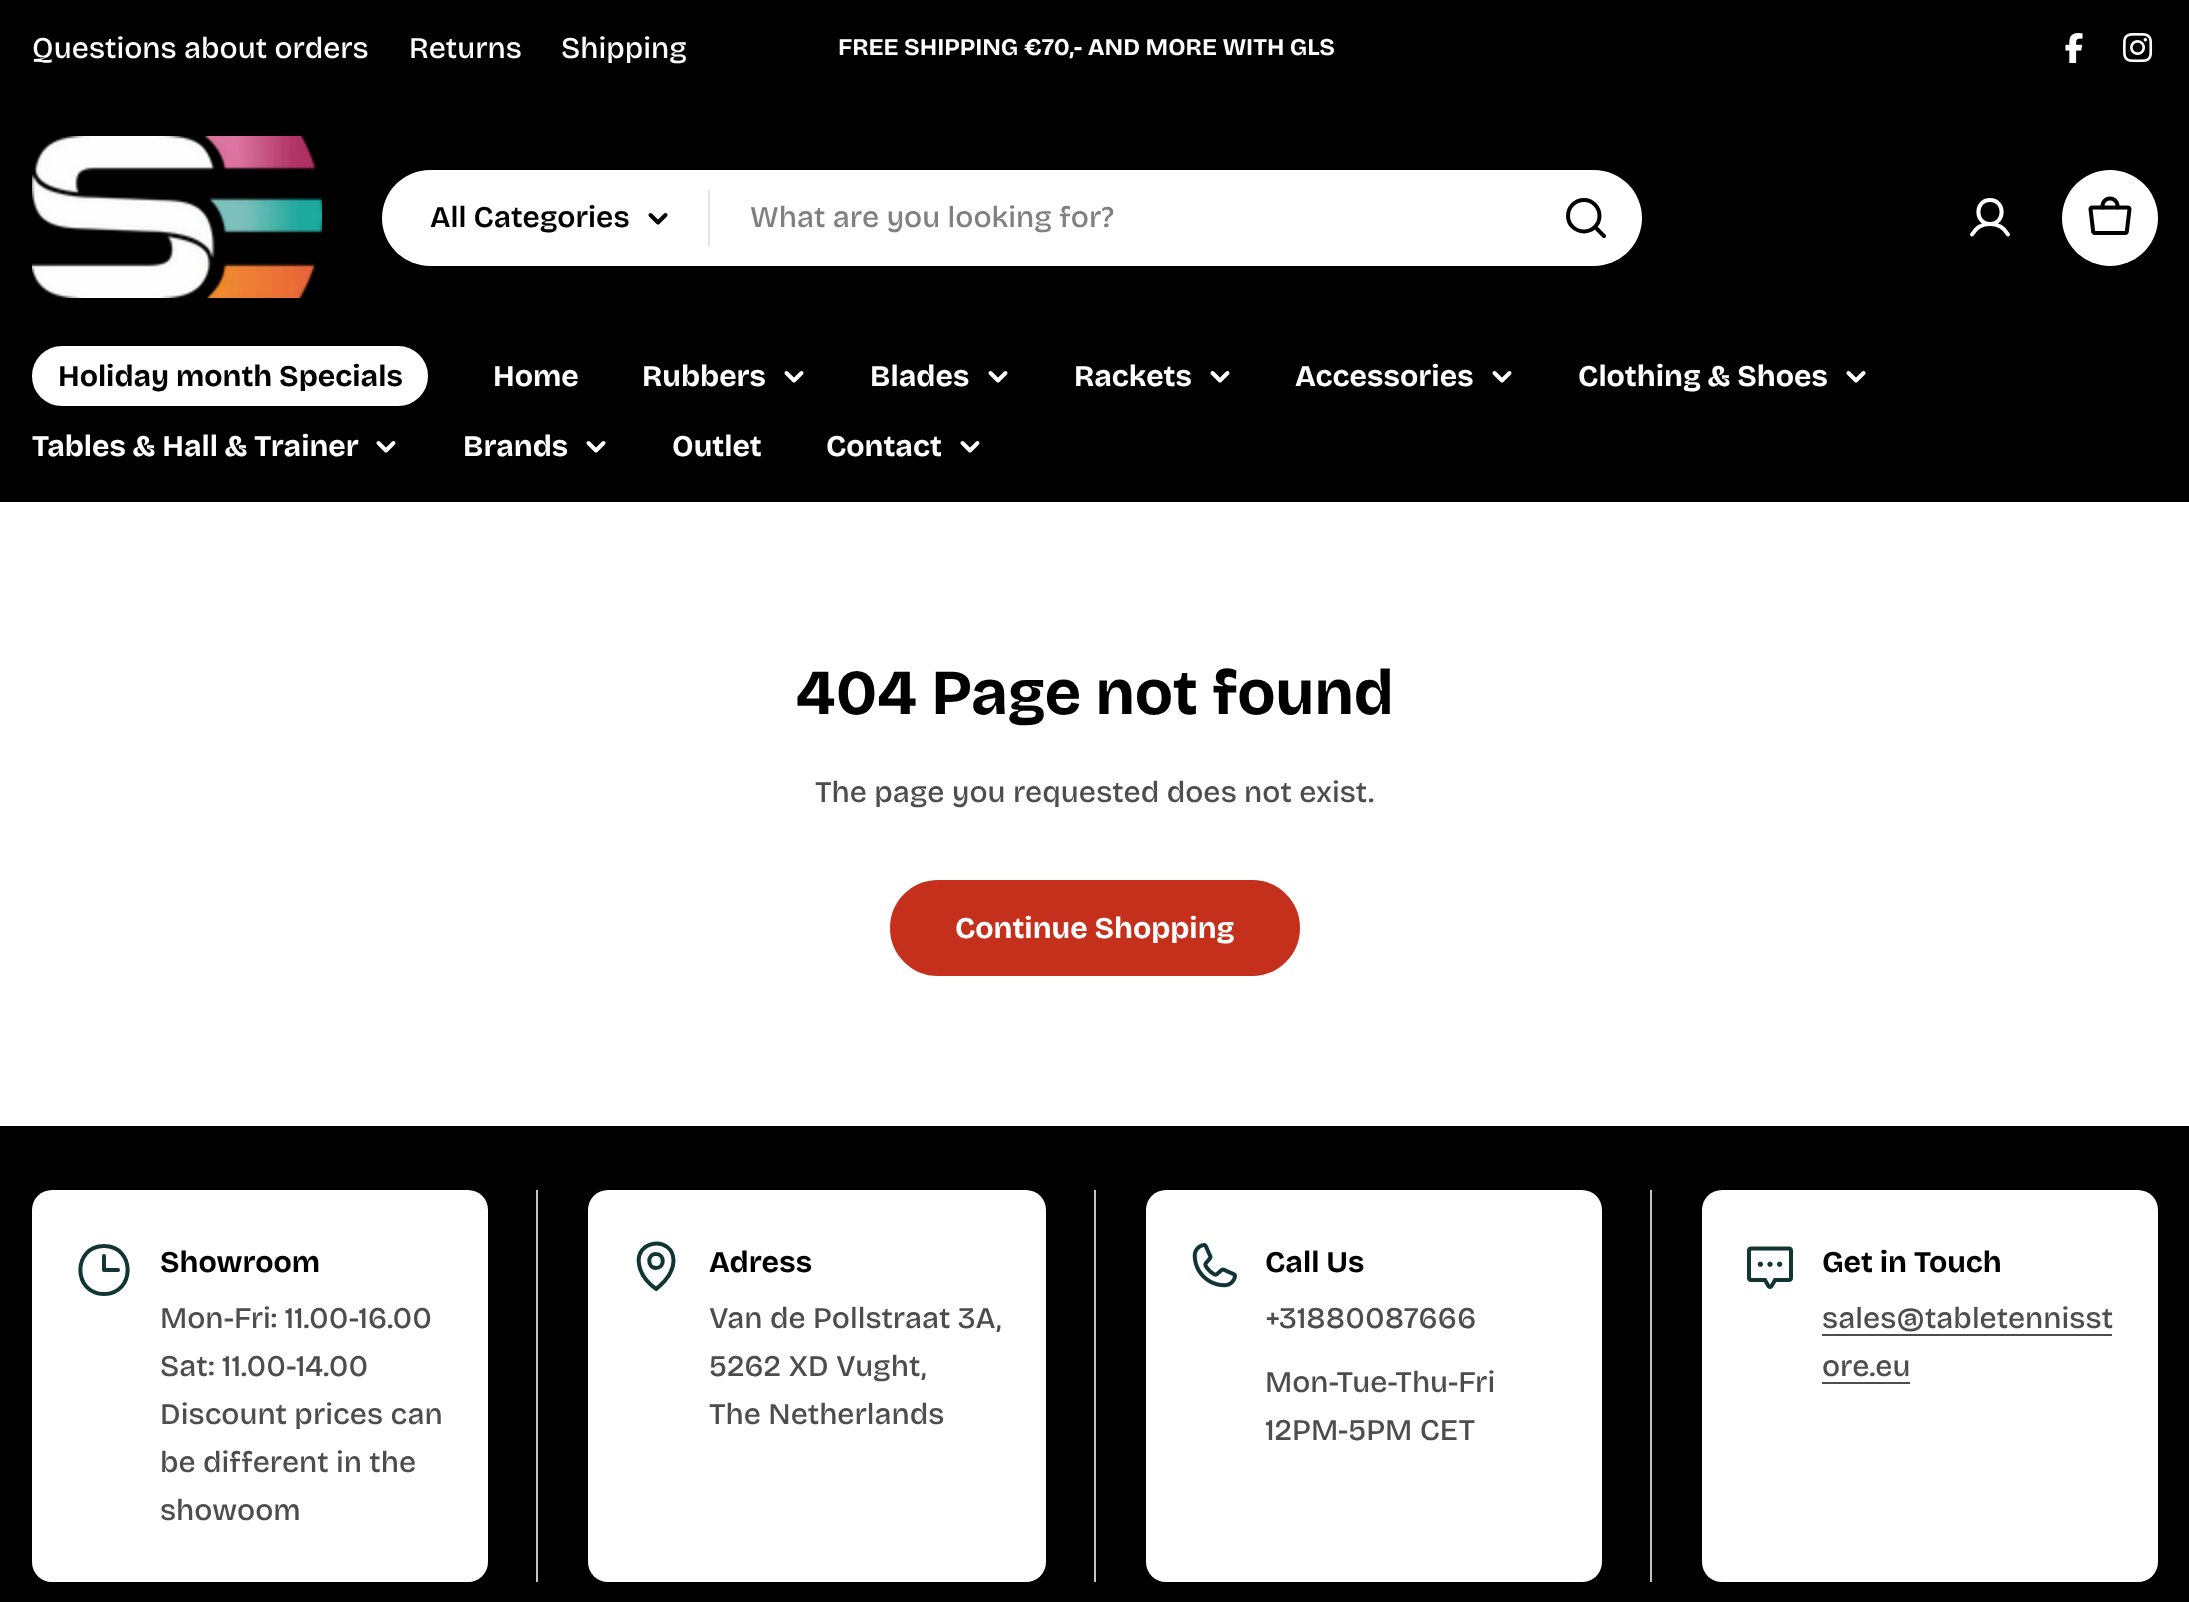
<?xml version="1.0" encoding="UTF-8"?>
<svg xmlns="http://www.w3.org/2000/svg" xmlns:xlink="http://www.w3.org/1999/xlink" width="2189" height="1602">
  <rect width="100%" height="100%" fill="#ffffff" />
  <rect width="2189" height="502" fill="#000000" />
  <image x="2065" y="33" width="18" height="30" xlink:href="image1.png" />
  <image x="2123" y="33" width="30" height="30" xlink:href="image2.png" />
  <image x="32" y="136" width="290" height="162" xlink:href="image3.png" />
  <rect x="382" y="170" width="1260" height="96" rx="48" fill="#ffffff" />
  <path d="M 665.5 215 l -7.5 7.5 l -7.5 -7.5" fill="none" stroke="#000000" stroke-width="4" stroke-linecap="round" stroke-linejoin="round" />
  <rect x="708" y="190" width="2" height="56" fill="#e6e6e6" />
  <path d="M 1584 231.5 c 8.5 0 15.5 -7 15.5 -15.5 c 0 -9 -7 -16 -15.5 -16 c -9 0 -16 7 -16 16 c 0 8.5 7 15.5 16 15.5 z m 11 -4.5 l 9 9" fill="none" stroke="#000000" stroke-width="4" stroke-linecap="round" stroke-linejoin="round" />
  <path d="M 1990 224 c 15.5 0 15.5 -24 0 -24 c -15.5 0 -15.5 24 0 24 z m -18 10.5 c 8 -14 28 -14 36 0" fill="none" stroke="#ffffff" stroke-width="4" stroke-linecap="round" stroke-linejoin="round" />
  <circle cx="2110" cy="218" r="48" fill="#ffffff" />
  <image x="2088" y="196" width="44" height="39" xlink:href="image4.png" />
  <rect x="33" y="347" width="394" height="58" rx="29" fill="#ffffff" stroke="#ffffff" stroke-width="2" />
  <path d="M 801.5 373 l -7.5 7.5 l -7.5 -7.5" fill="none" stroke="#ffffff" stroke-width="4" stroke-linecap="round" stroke-linejoin="round" />
  <path d="M 1005.5 373 l -7.5 7.5 l -7.5 -7.5" fill="none" stroke="#ffffff" stroke-width="4" stroke-linecap="round" stroke-linejoin="round" />
  <path d="M 1227.5 373 l -7.5 7.5 l -7.5 -7.5" fill="none" stroke="#ffffff" stroke-width="4" stroke-linecap="round" stroke-linejoin="round" />
  <path d="M 1509.5 373 l -7.5 7.5 l -7.5 -7.5" fill="none" stroke="#ffffff" stroke-width="4" stroke-linecap="round" stroke-linejoin="round" />
  <path d="M 1863.5 373 l -7.5 7.5 l -7.5 -7.5" fill="none" stroke="#ffffff" stroke-width="4" stroke-linecap="round" stroke-linejoin="round" />
  <path d="M 393.5 443 l -7.5 7.5 l -7.5 -7.5" fill="none" stroke="#ffffff" stroke-width="4" stroke-linecap="round" stroke-linejoin="round" />
  <path d="M 603.5 443 l -7.5 7.5 l -7.5 -7.5" fill="none" stroke="#ffffff" stroke-width="4" stroke-linecap="round" stroke-linejoin="round" />
  <path d="M 977.5 443 l -7.5 7.5 l -7.5 -7.5" fill="none" stroke="#ffffff" stroke-width="4" stroke-linecap="round" stroke-linejoin="round" />
  <rect x="891" y="881" width="408" height="94" rx="47" fill="#c4301c" stroke="#c4301c" stroke-width="2" />
  <rect y="1126" width="2189" height="476" fill="#000000" />
  <rect x="32" y="1190" width="456" height="392" rx="20" fill="#ffffff" />
  <path d="M 104 1294 c 31.5 0 31.5 -48 0 -48 c -31.5 0 -31.5 48 0 48 z m 0 -38 v 14 h 14" fill="none" stroke="#113534" stroke-width="4" stroke-linecap="round" stroke-linejoin="round" />
  <rect x="536" y="1190" width="2" height="392" fill="#c4c4c4" />
  <rect x="588" y="1190" width="458" height="392" rx="20" fill="#ffffff" />
  <path d="M 656 1268 c 9 0 9 -14 0 -14 c -9 -0.5 -9 14 0 14 z m 17.5 -7 c 0 15.5 -17.5 28 -17.5 28 c -7.5 -5.5 -14.5 -13.5 -16.5 -22.5 c -7 -27.5 34 -31.5 34 -5.5 z" fill="none" stroke="#113534" stroke-width="4" stroke-linecap="round" stroke-linejoin="round" />
  <rect x="1094" y="1190" width="2" height="392" fill="#c4c4c4" />
  <rect x="1146" y="1190" width="456" height="392" rx="20" fill="#ffffff" />
  <image x="1192" y="1243" width="45" height="45" xlink:href="image5.png" />
  <rect x="1650" y="1190" width="2" height="392" fill="#c4c4c4" />
  <rect x="1702" y="1190" width="456" height="392" rx="20" fill="#ffffff" />
  <image x="1747" y="1246" width="46" height="43" xlink:href="image6.png" />
  <rect x="1822" y="1334" width="290" height="2" fill="#4d4d4d" />
  <rect x="1822" y="1382" width="88" height="2" fill="#4d4d4d" />
  <text x="32" y="58" style="font-family: Bricolage Grotesque; font-size: 30px; font-weight: 500; fill: #ffffff">Questions about orders</text>
  <text x="409" y="58" style="font-family: Bricolage Grotesque; font-size: 30px; font-weight: 500; fill: #ffffff">Returns</text>
  <text x="561" y="58" style="font-family: Bricolage Grotesque; font-size: 30px; font-weight: 500; fill: #ffffff">Shipping</text>
  <text x="838" y="55" style="font-family: 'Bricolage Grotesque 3'; font-size: 24px; font-weight: bold; fill: #ffffff">FREE SHIPPING €70,- AND MORE WITH GLS</text>
  <text x="430" y="227" style="font-family: Bricolage Grotesque; font-size: 30px; font-weight: 600; fill: #000000">All Categories</text>
  <text x="750" y="227" style="font-family: Bricolage Grotesque; font-size: 30px; font-weight: 500; fill: #808080">What are you looking for?</text>
  <text x="58" y="386" style="font-family: 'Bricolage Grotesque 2'; font-size: 30px; font-weight: bold; fill: #000000">Holiday month Specials</text>
  <text x="493" y="386" style="font-family: 'Bricolage Grotesque 2'; font-size: 30px; font-weight: bold; fill: #ffffff">Home</text>
  <text x="642" y="386" style="font-family: 'Bricolage Grotesque 2'; font-size: 30px; font-weight: bold; fill: #ffffff">Rubbers</text>
  <text x="870" y="386" style="font-family: 'Bricolage Grotesque 2'; font-size: 30px; font-weight: bold; fill: #ffffff">Blades</text>
  <text x="1074" y="386" style="font-family: 'Bricolage Grotesque 2'; font-size: 30px; font-weight: bold; fill: #ffffff">Rackets</text>
  <text x="1295" y="386" style="font-family: 'Bricolage Grotesque 2'; font-size: 30px; font-weight: bold; fill: #ffffff">Accessories</text>
  <text x="1578" y="386" style="font-family: 'Bricolage Grotesque 2'; font-size: 30px; font-weight: bold; fill: #ffffff">Clothing &amp; Shoes</text>
  <text x="32" y="456" style="font-family: 'Bricolage Grotesque 2'; font-size: 30px; font-weight: bold; fill: #ffffff">Tables &amp; Hall &amp; Trainer</text>
  <text x="463" y="456" style="font-family: 'Bricolage Grotesque 2'; font-size: 30px; font-weight: bold; fill: #ffffff">Brands</text>
  <text x="672" y="456" style="font-family: 'Bricolage Grotesque 2'; font-size: 30px; font-weight: bold; fill: #ffffff">Outlet</text>
  <text x="826" y="456" style="font-family: 'Bricolage Grotesque 2'; font-size: 30px; font-weight: bold; fill: #ffffff">Contact</text>
  <text x="796" y="714" style="font-family: Bricolage Grotesque; font-size: 64px; font-weight: bold; fill: #000000">404 Page not found</text>
  <text x="815" y="802" style="font-family: Bricolage Grotesque; font-size: 30px; font-weight: 500; fill: #4d4d4d">The page you requested does not exist.</text>
  <text x="955" y="938" style="font-family: 'Bricolage Grotesque 2'; font-size: 30px; font-weight: bold; fill: #ffffff">Continue Shopping</text>
  <text x="160" y="1272" style="font-family: 'Bricolage Grotesque 2'; font-size: 30px; font-weight: bold; fill: #000000">Showroom</text>
  <text x="160" y="1328" style="font-family: Bricolage Grotesque; font-size: 30px; font-weight: 500; fill: #4d4d4d">Mon-Fri: 11.00-16.00</text>
  <text x="160" y="1376" style="font-family: Bricolage Grotesque; font-size: 30px; font-weight: 500; fill: #4d4d4d">Sat: 11.00-14.00</text>
  <text x="160" y="1424" style="font-family: Bricolage Grotesque; font-size: 30px; font-weight: 500; fill: #4d4d4d">Discount prices can</text>
  <text x="160" y="1472" style="font-family: Bricolage Grotesque; font-size: 30px; font-weight: 500; fill: #4d4d4d">be different in the</text>
  <text x="160" y="1520" style="font-family: Bricolage Grotesque; font-size: 30px; font-weight: 500; fill: #4d4d4d">showoom</text>
  <text x="709" y="1272" style="font-family: 'Bricolage Grotesque 2'; font-size: 30px; font-weight: bold; fill: #000000">Adress</text>
  <text x="709" y="1328" style="font-family: Bricolage Grotesque; font-size: 30px; font-weight: 500; fill: #4d4d4d">Van de Pollstraat 3A,</text>
  <text x="709" y="1376" style="font-family: Bricolage Grotesque; font-size: 30px; font-weight: 500; fill: #4d4d4d">5262 XD Vught,</text>
  <text x="709" y="1424" style="font-family: Bricolage Grotesque; font-size: 30px; font-weight: 500; fill: #4d4d4d">The Netherlands</text>
  <text x="1265" y="1272" style="font-family: 'Bricolage Grotesque 2'; font-size: 30px; font-weight: bold; fill: #000000">Call Us</text>
  <text x="1265" y="1328" style="font-family: Bricolage Grotesque; font-size: 30px; font-weight: 500; fill: #4d4d4d">+31880087666</text>
  <text x="1265" y="1392" style="font-family: Bricolage Grotesque; font-size: 30px; font-weight: 500; fill: #4d4d4d">Mon-Tue-Thu-Fri</text>
  <text x="1265" y="1440" style="font-family: Bricolage Grotesque; font-size: 30px; font-weight: 500; fill: #4d4d4d">12PM-5PM CET</text>
  <text x="1822" y="1272" style="font-family: 'Bricolage Grotesque 2'; font-size: 30px; font-weight: bold; fill: #000000">Get in Touch</text>
  <text x="1822" y="1328" style="font-family: Bricolage Grotesque; font-size: 30px; font-weight: 500; fill: #4d4d4d">sales@tabletennisst</text>
  <text x="1822" y="1376" style="font-family: Bricolage Grotesque; font-size: 30px; font-weight: 500; fill: #4d4d4d">ore.eu</text>
</svg>
